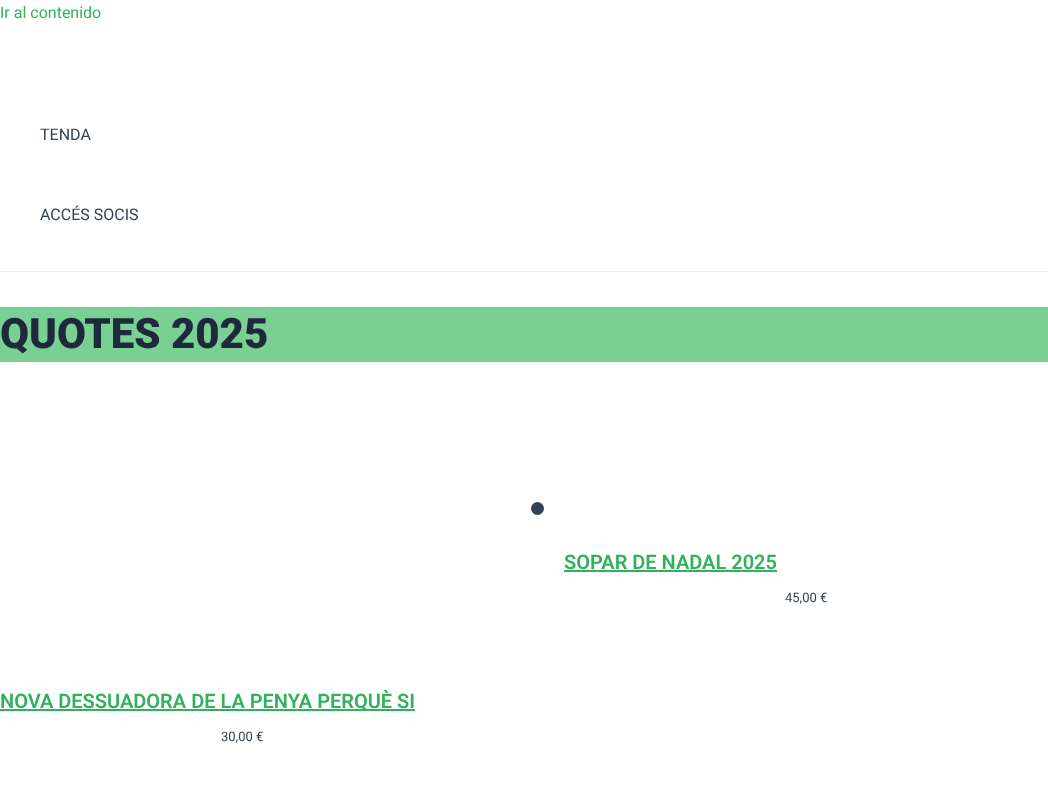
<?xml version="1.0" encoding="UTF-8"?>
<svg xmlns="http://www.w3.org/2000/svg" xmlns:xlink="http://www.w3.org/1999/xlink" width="1048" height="806">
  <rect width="100%" height="100%" fill="#ffffff" />
  <rect y="271" width="1048" height="1" fill="#e0f1e6" />
  <rect y="307" width="1048" height="55" fill="#7acf93" />
  <circle cx="537.5" cy="508.5" r="6.5" fill="#334155" />
  <rect x="564" y="570" width="213" height="2" fill="#2fb25a" />
  <rect y="709" width="415" height="2" fill="#2fb25a" />
  <text x="0" y="18" style="font-family: Roboto; font-size: 16px; fill: #2fb25a">Ir al contenido</text>
  <text x="40" y="140" style="font-family: Roboto; font-size: 16px; fill: #334155">TENDA</text>
  <text x="40" y="220" style="font-family: Roboto; font-size: 16px; fill: #334155">ACCÉS SOCIS</text>
  <text x="0" y="348" style="font-family: Roboto; font-size: 42px; font-weight: 900; fill: #1e293b">QUOTES 2025</text>
  <text x="564" y="569" style="font-family: Roboto; font-size: 20px; font-weight: 600; fill: #2fb25a">SOPAR DE NADAL 2025</text>
  <text x="785" y="602" style="font-family: Roboto; font-size: 13px; fill: #334155">45,00 €</text>
  <text x="0" y="708" style="font-family: Roboto; font-size: 20px; font-weight: 600; fill: #2fb25a">NOVA DESSUADORA DE LA PENYA PERQUÈ SI</text>
  <text x="221" y="741" style="font-family: Roboto; font-size: 13px; fill: #334155">30,00 €</text>
</svg>
